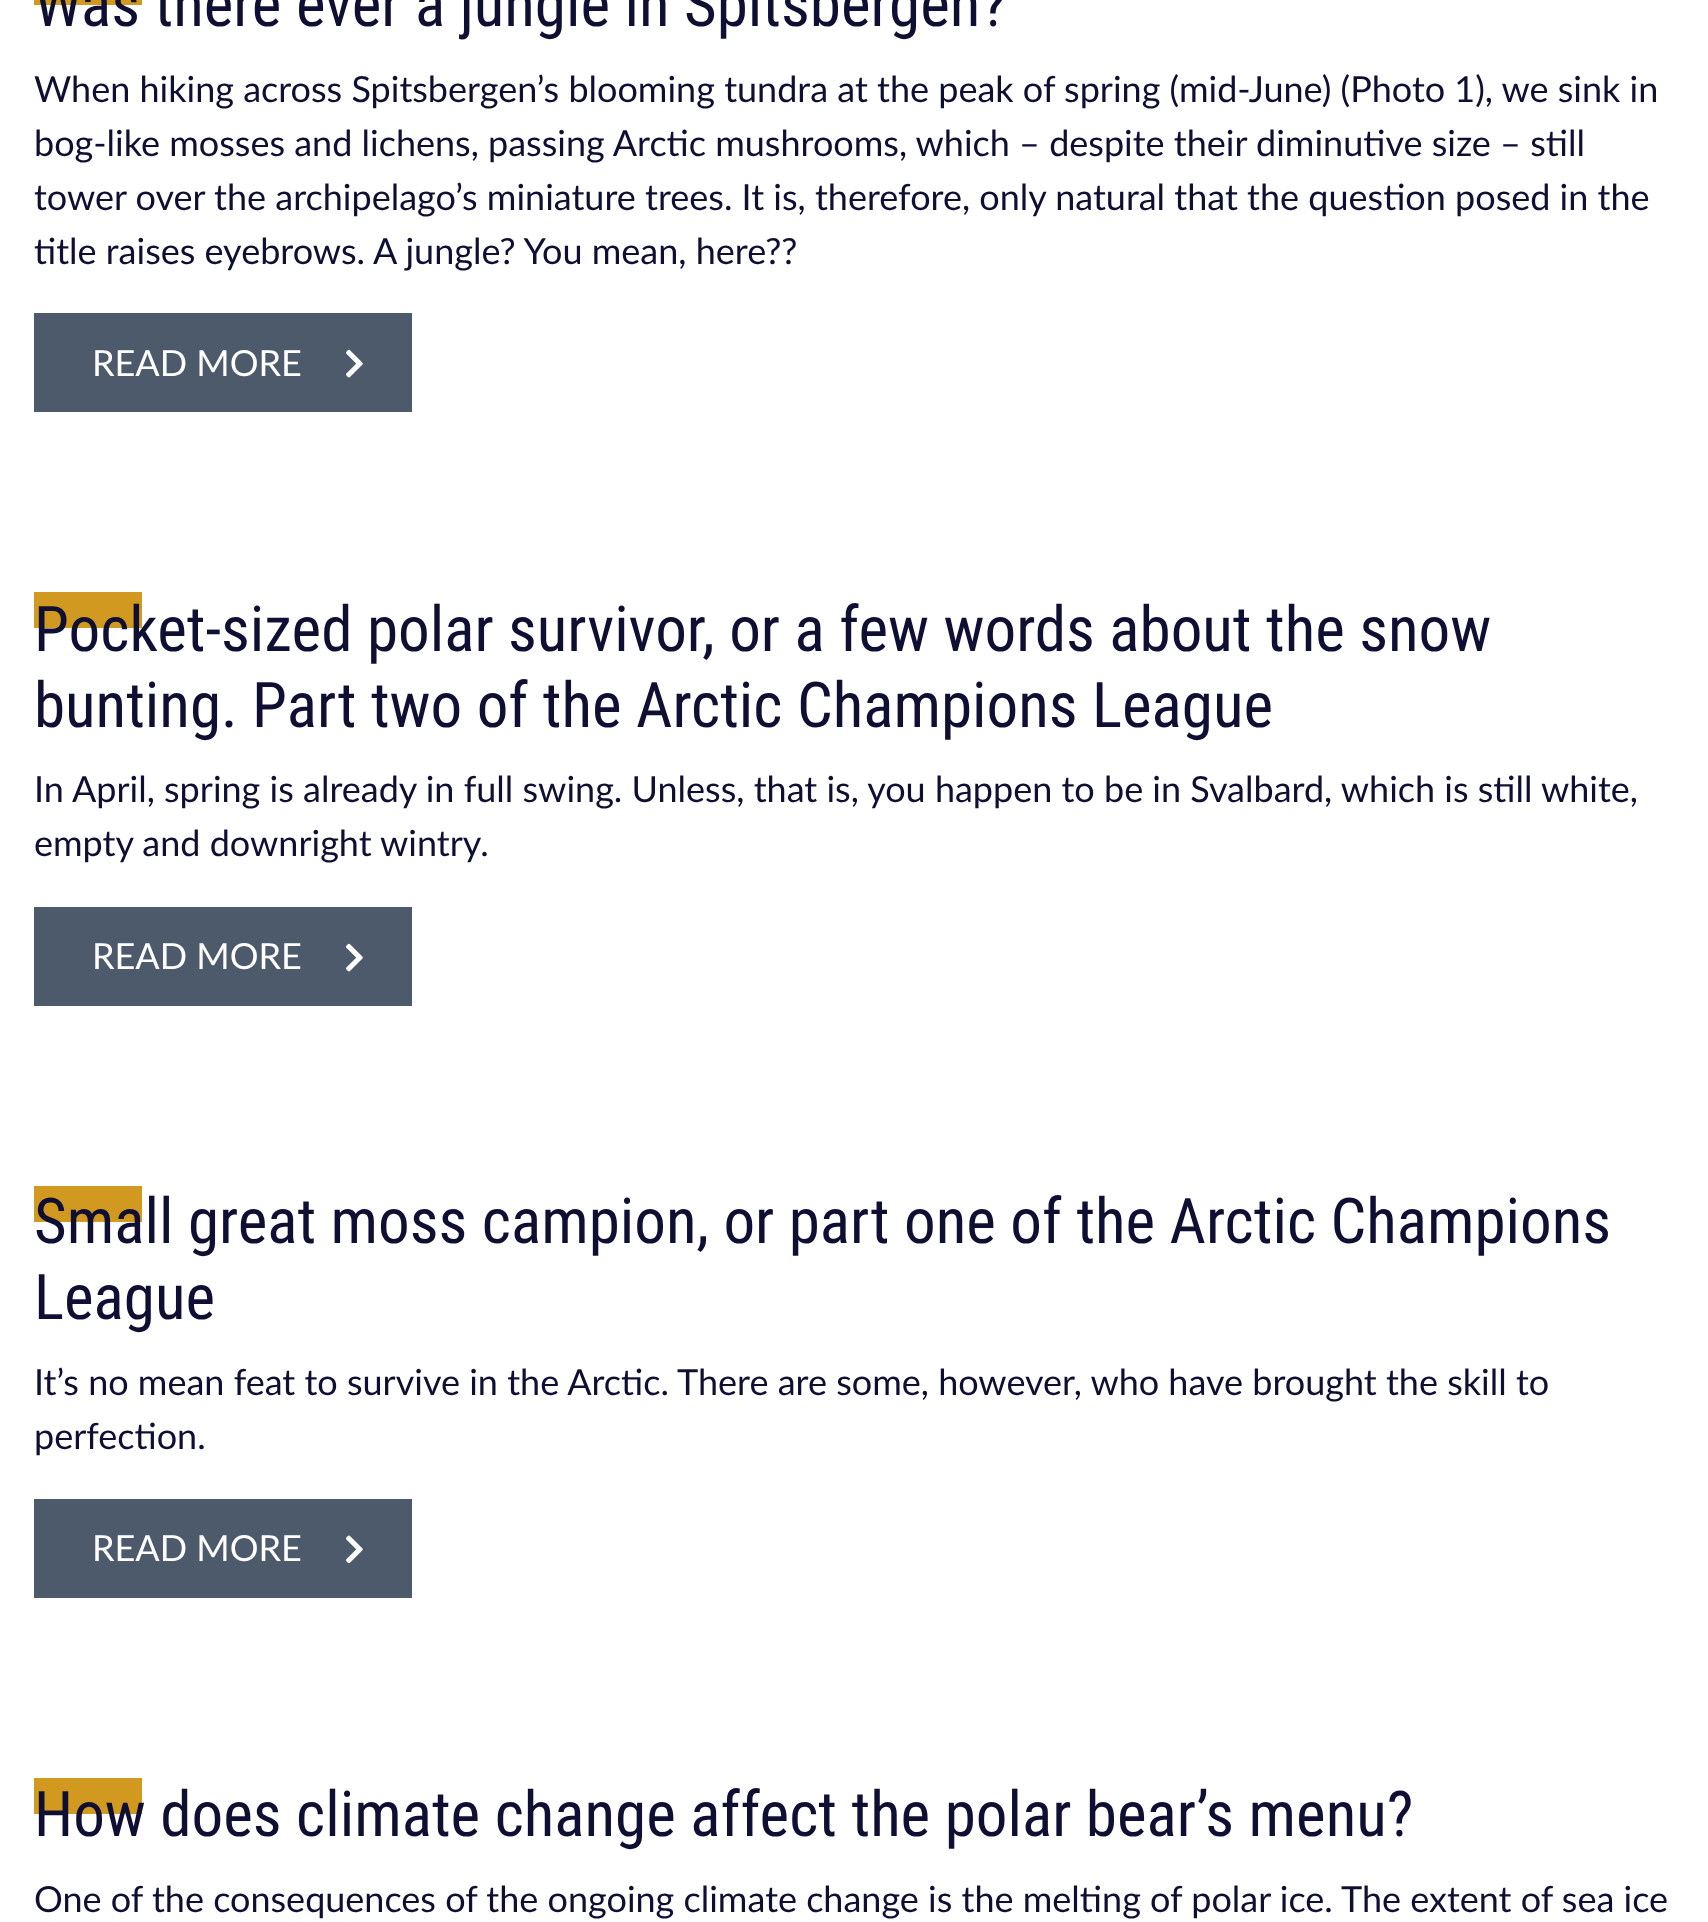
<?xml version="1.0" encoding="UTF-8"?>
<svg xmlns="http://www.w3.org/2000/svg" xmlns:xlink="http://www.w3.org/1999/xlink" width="1708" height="1922">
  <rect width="100%" height="100%" fill="#ffffff" />
  <rect x="34" width="108" height="5" fill="#d19920" />
  <rect x="34" y="313" width="378" height="99" fill="#4d5a6b" />
  <image x="346" y="349" width="17" height="29" xlink:href="image1.png" />
  <rect x="34" y="592" width="108" height="36" fill="#d19920" />
  <rect x="34" y="907" width="378" height="99" fill="#4d5a6b" />
  <image x="346" y="943" width="17" height="29" xlink:href="image1.png" />
  <rect x="34" y="1186" width="108" height="36" fill="#d19920" />
  <rect x="34" y="1499" width="378" height="99" fill="#4d5a6b" />
  <image x="346" y="1535" width="17" height="29" xlink:href="image2.png" />
  <rect x="34" y="1778" width="108" height="36" fill="#d19920" />
  <text x="34" y="26" style="font-family: Roboto Condensed; font-size: 63.1px; fill: #0f0f33">Was there ever a jungle in Spitsbergen?</text>
  <text x="34" y="102" style="font-family: Lato; font-size: 36px; fill: #0f0f33">When hiking across Spitsbergen’s blooming tundra at the peak of spring (mid-June) (Photo 1), we sink in</text>
  <text x="34" y="156" style="font-family: Lato; font-size: 36px; fill: #0f0f33">bog-like mosses and lichens, passing Arctic mushrooms, which – despite their diminutive size – still</text>
  <text x="34" y="210" style="font-family: Lato; font-size: 36px; fill: #0f0f33">tower over the archipelago’s miniature trees. It is, therefore, only natural that the question posed in the</text>
  <text x="34" y="264" style="font-family: Lato; font-size: 36px; fill: #0f0f33">title raises eyebrows. A jungle? You mean, here??</text>
  <text x="92" y="376" style="font-family: Lato; font-size: 36px; fill: #ffffff">READ MORE</text>
  <text x="34" y="651" style="font-family: Roboto Condensed; font-size: 63.1px; fill: #0f0f33">Pocket-sized polar survivor, or a few words about the snow</text>
  <text x="34" y="727" style="font-family: Roboto Condensed; font-size: 63.1px; fill: #0f0f33">bunting. Part two of the Arctic Champions League</text>
  <text x="34" y="802" style="font-family: Lato; font-size: 36px; fill: #0f0f33">In April, spring is already in full swing. Unless, that is, you happen to be in Svalbard, which is still white,</text>
  <text x="34" y="856" style="font-family: Lato; font-size: 36px; fill: #0f0f33">empty and downright wintry.</text>
  <text x="92" y="969" style="font-family: Lato; font-size: 36px; fill: #ffffff">READ MORE</text>
  <text x="34" y="1243" style="font-family: Roboto Condensed; font-size: 63.1px; fill: #0f0f33">Small great moss campion, or part one of the Arctic Champions</text>
  <text x="34" y="1319" style="font-family: Roboto Condensed; font-size: 63.1px; fill: #0f0f33">League</text>
  <text x="34" y="1395" style="font-family: Lato; font-size: 36px; fill: #0f0f33">It’s no mean feat to survive in the Arctic. There are some, however, who have brought the skill to</text>
  <text x="34" y="1449" style="font-family: Lato; font-size: 36px; fill: #0f0f33">perfection.</text>
  <text x="92" y="1561" style="font-family: Lato; font-size: 36px; fill: #ffffff">READ MORE</text>
  <text x="34" y="1836" style="font-family: Roboto Condensed; font-size: 63.1px; fill: #0f0f33">How does climate change affect the polar bear’s menu?</text>
  <text x="34" y="1912" style="font-family: Lato; font-size: 36px; fill: #0f0f33">One of the consequences of the ongoing climate change is the melting of polar ice. The extent of sea ice</text>
</svg>
